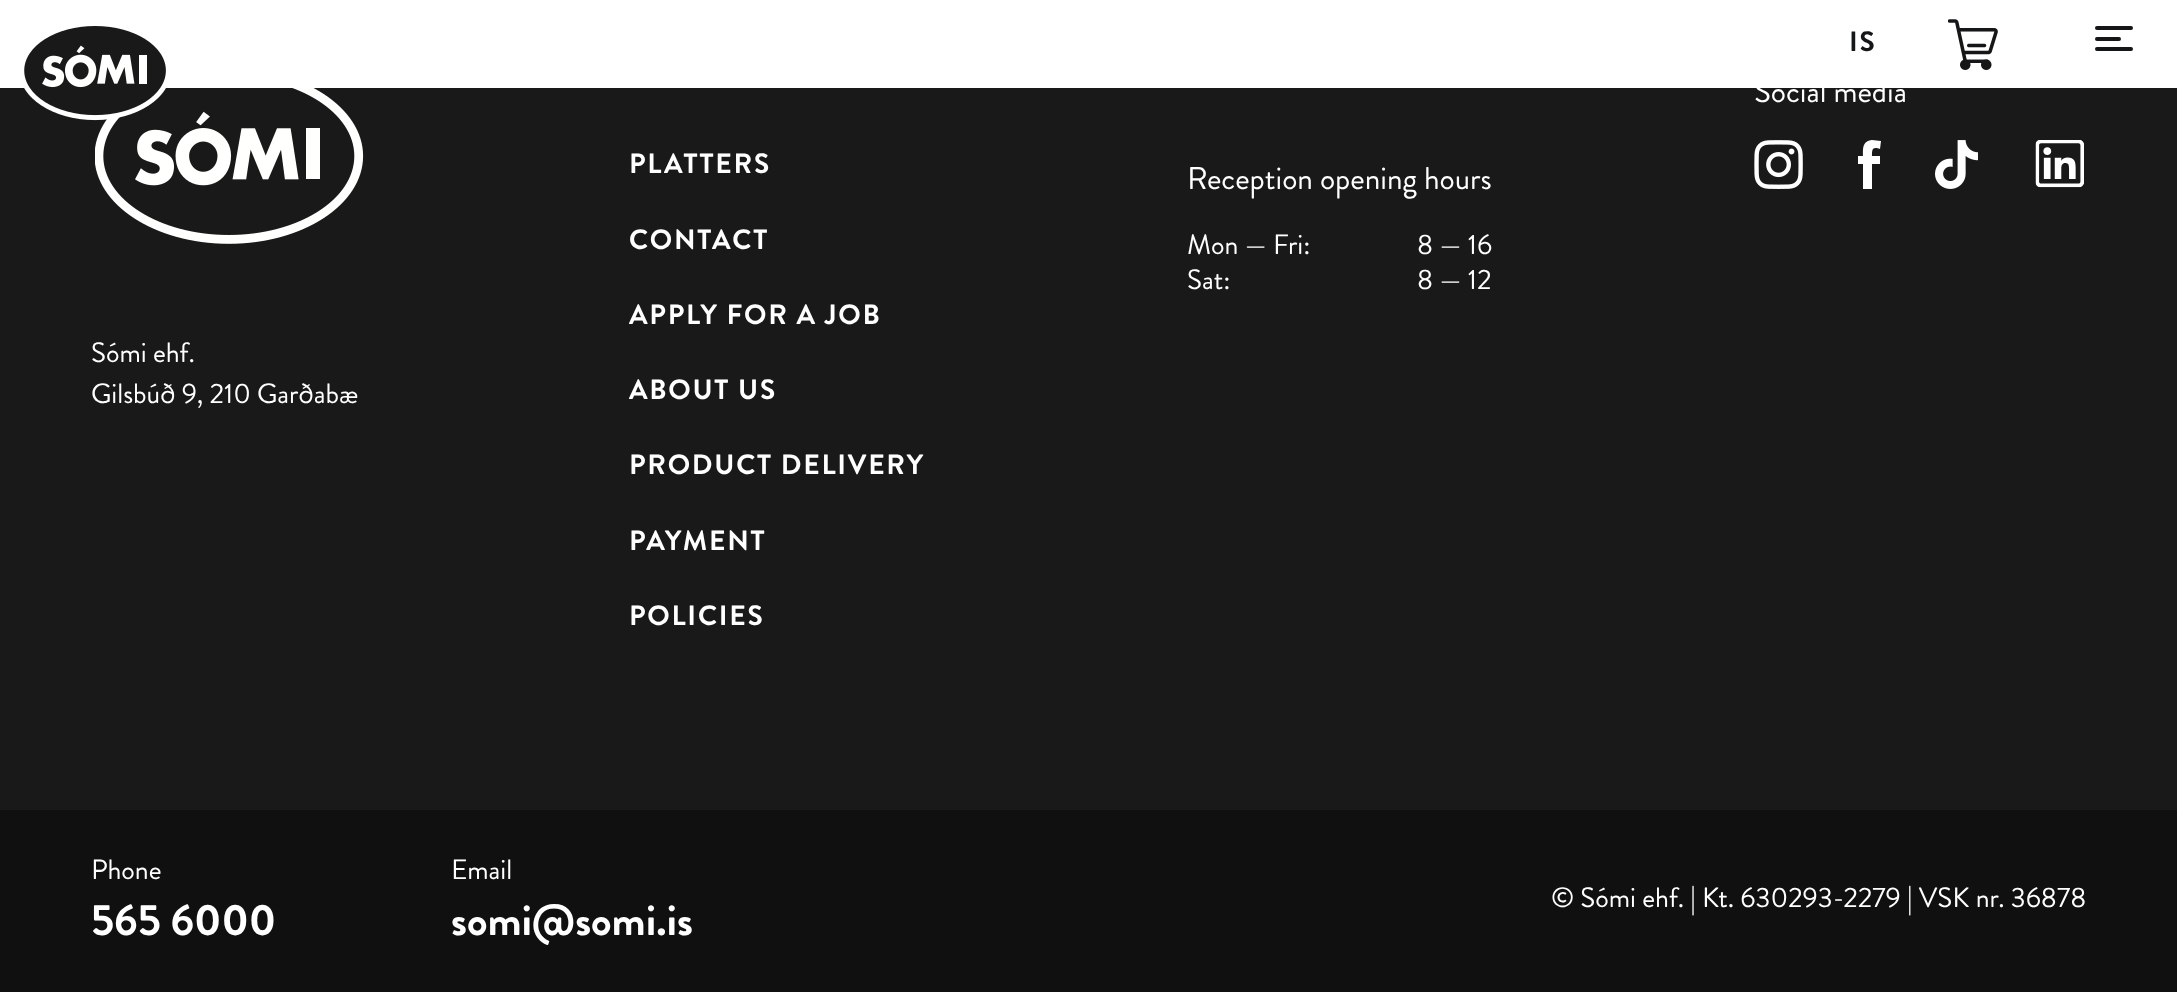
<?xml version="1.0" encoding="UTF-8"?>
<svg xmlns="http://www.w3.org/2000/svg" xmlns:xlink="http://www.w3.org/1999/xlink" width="2177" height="992">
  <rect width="100%" height="100%" fill="#1a1919" />
  <rect width="2177" height="88" fill="#ffffff" />
  <image x="95" y="88" width="269" height="156" xlink:href="image6.png" />
  <image x="24" y="26" width="142" height="95" xlink:href="image1.png" />
  <image x="1948" y="19" width="50" height="51" xlink:href="image2.png" />
  <rect x="2095" y="26" width="38" height="4" rx="2" fill="#151617" />
  <rect x="2095" y="37" width="26" height="4" rx="2" fill="#151617" />
  <rect x="2095" y="47" width="38" height="4" rx="2" fill="#151617" />
  <image x="1754" y="140" width="49" height="49" xlink:href="image3.png" />
  <path d="M 1858 156 h 5 c 0 -7 -1 -15 9 -16 l 9 1 l -1 8 c -8 -3 -8 1 -8 7 h 8 v 8 h -8 v 25 h -9 v -25 h -5 z" fill="#ffffff" />
  <image x="1935" y="140" width="43" height="49" xlink:href="image4.png" />
  <image x="2035" y="140" width="49" height="48" xlink:href="image5.png" />
  <rect y="810" width="2177" height="182" fill="#101010" />
  <text x="1849" y="51" style="font-family: Brandon Grotesque; font-size: 28px; font-weight: bold; letter-spacing: 1.75px; fill: #151617">IS</text>
  <text x="1754" y="102" style="font-family: Brandon Grotesque; font-size: 31.5px; fill: #ffffff">Social media</text>
  <text x="629" y="173" style="font-family: Brandon Grotesque; font-size: 28px; font-weight: bold; letter-spacing: 1.75px; fill: #ffffff">PLATTERS</text>
  <text x="629" y="249" style="font-family: Brandon Grotesque; font-size: 28px; font-weight: bold; letter-spacing: 1.75px; fill: #ffffff">CONTACT</text>
  <text x="629" y="324" style="font-family: Brandon Grotesque; font-size: 28px; font-weight: bold; letter-spacing: 1.75px; fill: #ffffff">APPLY FOR A JOB</text>
  <text x="629" y="399" style="font-family: Brandon Grotesque; font-size: 28px; font-weight: bold; letter-spacing: 1.75px; fill: #ffffff">ABOUT US</text>
  <text x="629" y="474" style="font-family: Brandon Grotesque; font-size: 28px; font-weight: bold; letter-spacing: 1.75px; fill: #ffffff">PRODUCT DELIVERY</text>
  <text x="629" y="550" style="font-family: Brandon Grotesque; font-size: 28px; font-weight: bold; letter-spacing: 1.75px; fill: #ffffff">PAYMENT</text>
  <text x="629" y="625" style="font-family: Brandon Grotesque; font-size: 28px; font-weight: bold; letter-spacing: 1.75px; fill: #ffffff">POLICIES</text>
  <text x="1187" y="189" style="font-family: Brandon Grotesque; font-size: 31.5px; fill: #ffffff">Reception opening hours</text>
  <text x="1187" y="254" style="font-family: Brandon Grotesque; font-size: 28px; fill: #ffffff">Mon — Fri:</text>
  <text x="1417" y="254" style="font-family: Brandon Grotesque; font-size: 28px; fill: #ffffff">8 — 16</text>
  <text x="1187" y="289" style="font-family: Brandon Grotesque; font-size: 28px; fill: #ffffff">Sat:</text>
  <text x="1417" y="289" style="font-family: Brandon Grotesque; font-size: 28px; fill: #ffffff">8 — 12</text>
  <text x="91" y="362" style="font-family: Brandon Grotesque; font-size: 28px; fill: #ffffff">Sómi ehf.</text>
  <text x="91" y="403" style="font-family: Brandon Grotesque; font-size: 28px; fill: #ffffff">Gilsbúð 9, 210 Garðabæ</text>
  <text x="91" y="879" style="font-family: Brandon Grotesque; font-size: 28px; fill: #ffffff">Phone</text>
  <text x="91" y="935" style="font-family: Brandon Grotesque; font-size: 43.75px; font-weight: bold; fill: #ffffff">565 6000</text>
  <text x="451" y="879" style="font-family: Brandon Grotesque; font-size: 28px; fill: #ffffff">Email</text>
  <text x="451" y="935" style="font-family: Brandon Grotesque; font-size: 43.75px; font-weight: bold; fill: #ffffff">somi@somi.is</text>
  <text x="1551" y="907" style="font-family: Brandon Grotesque; font-size: 28px; fill: #ffffff">© Sómi ehf. | Kt. 630293-2279 | VSK nr. 36878</text>
</svg>
